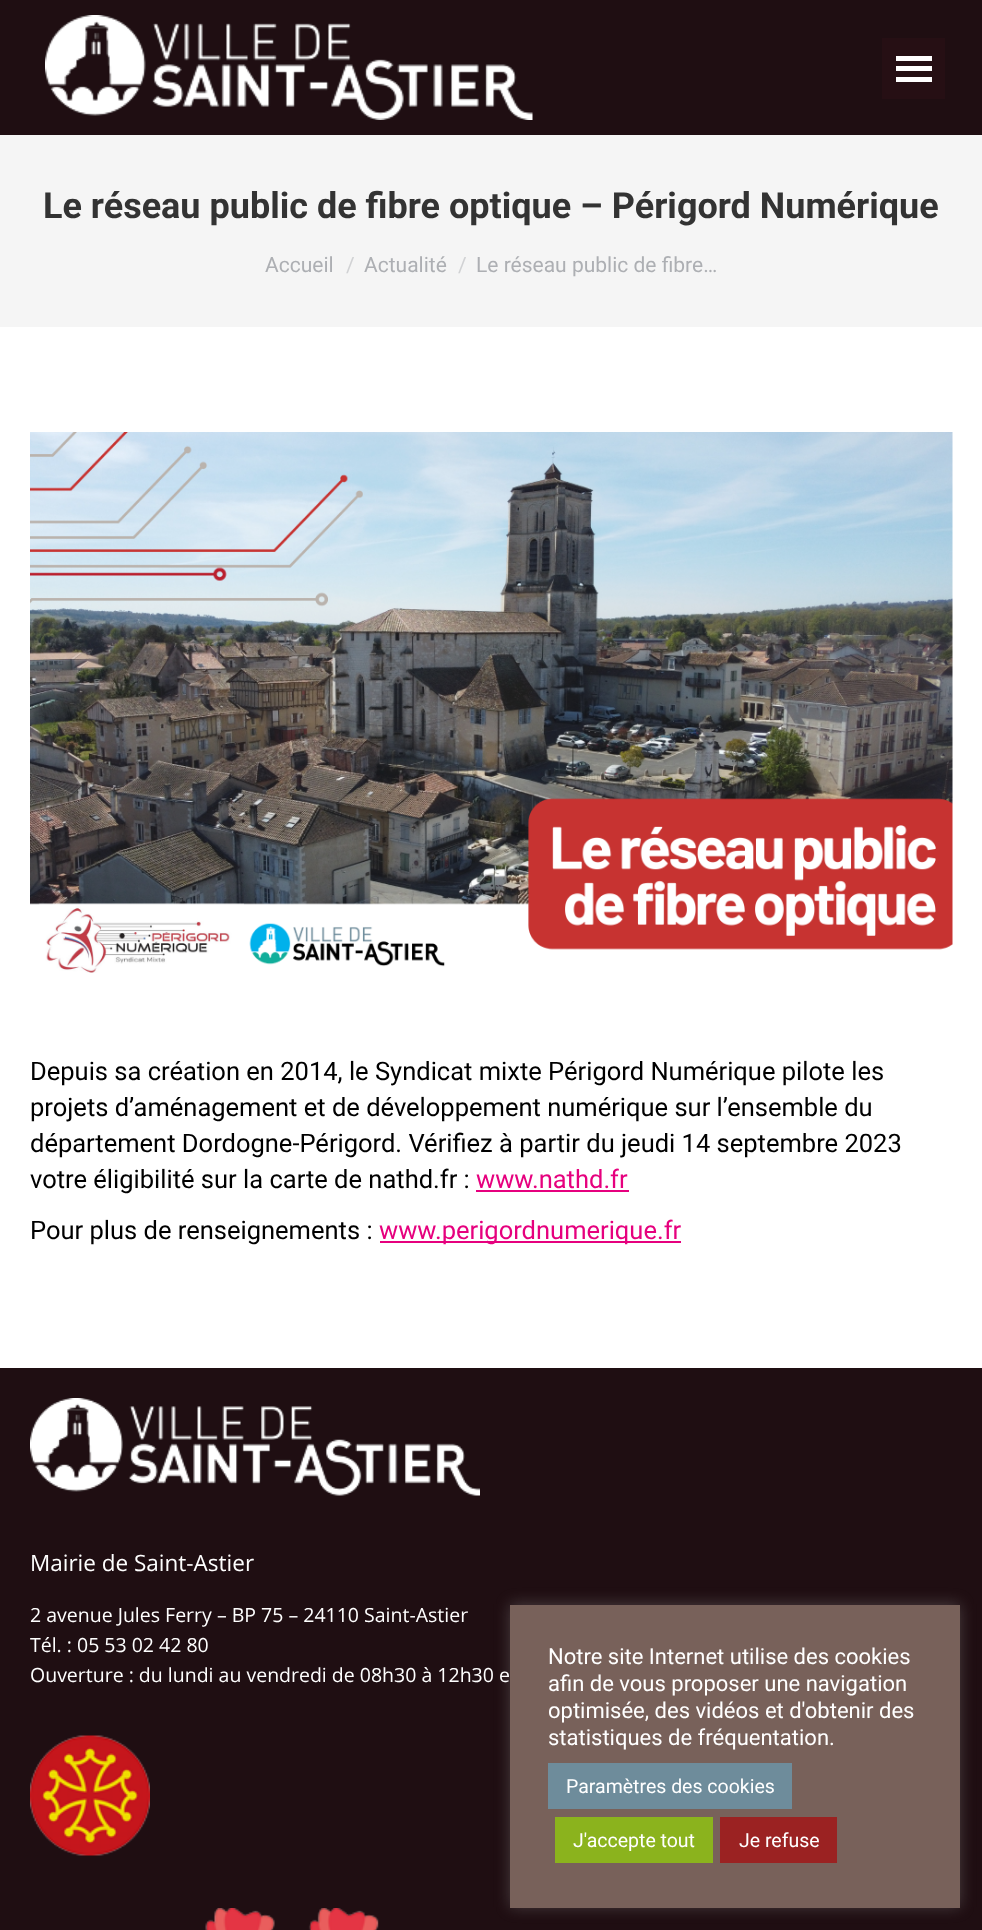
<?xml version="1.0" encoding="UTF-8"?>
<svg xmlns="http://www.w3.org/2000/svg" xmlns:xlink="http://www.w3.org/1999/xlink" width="982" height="1930">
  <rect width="100%" height="100%" fill="#ffffff" />
  <rect width="982" height="135" fill="#1f0e12" />
  <image x="45" y="15" width="488" height="105" xlink:href="image1.png" />
  <rect x="882" y="38" width="63" height="61" fill="#260f14" />
  <rect x="896" y="56" width="36" height="5" fill="#ffffff" />
  <rect x="896" y="66" width="36" height="5" fill="#ffffff" />
  <rect x="896" y="77" width="36" height="5" fill="#ffffff" />
  <rect y="135" width="982" height="192" fill="#f5f5f5" />
  <image x="30" y="432" width="923" height="541" xlink:href="image2.png" />
  <rect x="476" y="1190" width="153" height="2" fill="#e6007e" />
  <rect x="380" y="1241" width="301" height="2" fill="#e6007e" />
  <rect y="1368" width="982" height="562" fill="#1f0e12" />
  <image x="30" y="1398" width="450" height="98" xlink:href="image3.png" />
  <image x="30" y="1735" width="120" height="121" xlink:href="image4.png" />
  <image x="205" y="1908" width="174" height="22" xlink:href="image5.png" />
  <rect x="510" y="1604" width="450" height="303" fill="#acabab" fill-opacity="0.3" filter="blur(7.5px)" />
  <rect x="510" y="1605" width="450" height="303" fill="#78615a" />
  <rect x="548" y="1763" width="244" height="46" fill="#6e8c9b" />
  <rect x="555" y="1817" width="158" height="46" fill="#8bb31d" />
  <rect x="720" y="1817" width="117" height="46" fill="#9b2222" />
  <text x="43" y="218" style="font-family: Roboto; font-size: 36px; font-weight: bold; fill: #333333">Le réseau public de fibre optique – Périgord Numérique</text>
  <text x="265" y="272" style="font-family: Roboto; font-size: 21px; fill: #adafb3">Accueil</text>
  <text x="346" y="272" style="font-family: Roboto; font-size: 21px; fill: #d1d2d4">/</text>
  <text x="364" y="272" style="font-family: Roboto; font-size: 21px; fill: #adafb3">Actualité</text>
  <text x="458" y="272" style="font-family: Roboto; font-size: 21px; fill: #d1d2d4">/</text>
  <text x="476" y="272" style="font-family: Roboto; font-size: 21px; fill: #adafb3">Le réseau public de fibre…</text>
  <text x="30" y="1080" style="font-family: Roboto; font-size: 25.5px; fill: #000000">Depuis sa création en 2014, le Syndicat mixte Périgord Numérique pilote les</text>
  <text x="30" y="1116" style="font-family: Roboto; font-size: 25.5px; fill: #000000">projets d’aménagement et de développement numérique sur l’ensemble du</text>
  <text x="30" y="1152" style="font-family: Roboto; font-size: 25.5px; fill: #000000">département Dordogne-Périgord. Vérifiez à partir du jeudi 14 septembre 2023</text>
  <text x="30" y="1188" style="font-family: Roboto; font-size: 25.5px; fill: #000000">votre éligibilité sur la carte de nathd.fr :</text>
  <text x="476" y="1188" style="font-family: Roboto; font-size: 25.5px; fill: #e6007e">www.nathd.fr</text>
  <text x="30" y="1239" style="font-family: Roboto; font-size: 25.5px; fill: #000000">Pour plus de renseignements :</text>
  <text x="379" y="1239" style="font-family: Roboto; font-size: 25.5px; fill: #e6007e">www.perigordnumerique.fr</text>
  <text x="30" y="1571" style="font-family: Open Sans; font-size: 22.5px; fill: #ffffff">Mairie de Saint-Astier</text>
  <text x="30" y="1622" style="font-family: Open Sans; font-size: 19.5px; fill: #ffffff">2 avenue Jules Ferry – BP 75 – 24110 Saint-Astier</text>
  <text x="30" y="1652" style="font-family: Open Sans; font-size: 19.5px; fill: #ffffff">Tél. : 05 53 02 42 80</text>
  <text x="30" y="1682" style="font-family: Open Sans; font-size: 19.5px; fill: #ffffff">Ouverture : du lundi au vendredi de 08h30 à 12h30 e</text>
  <text x="548" y="1664" style="font-family: Roboto; font-size: 22px; fill: #ffffff">Notre site Internet utilise des cookies</text>
  <text x="548" y="1691" style="font-family: Roboto; font-size: 22px; fill: #ffffff">afin de vous proposer une navigation</text>
  <text x="548" y="1718" style="font-family: Roboto; font-size: 22px; fill: #ffffff">optimisée, des vidéos et d'obtenir des</text>
  <text x="548" y="1745" style="font-family: Roboto; font-size: 22px; fill: #ffffff">statistiques de fréquentation.</text>
  <text x="566" y="1793" style="font-family: Roboto; font-size: 19.5px; fill: #ffffff">Paramètres des cookies</text>
  <text x="573" y="1847" style="font-family: Roboto; font-size: 19.5px; fill: #ffffff">J'accepte tout</text>
  <text x="739" y="1847" style="font-family: Roboto; font-size: 19.5px; fill: #ffffff">Je refuse</text>
</svg>
